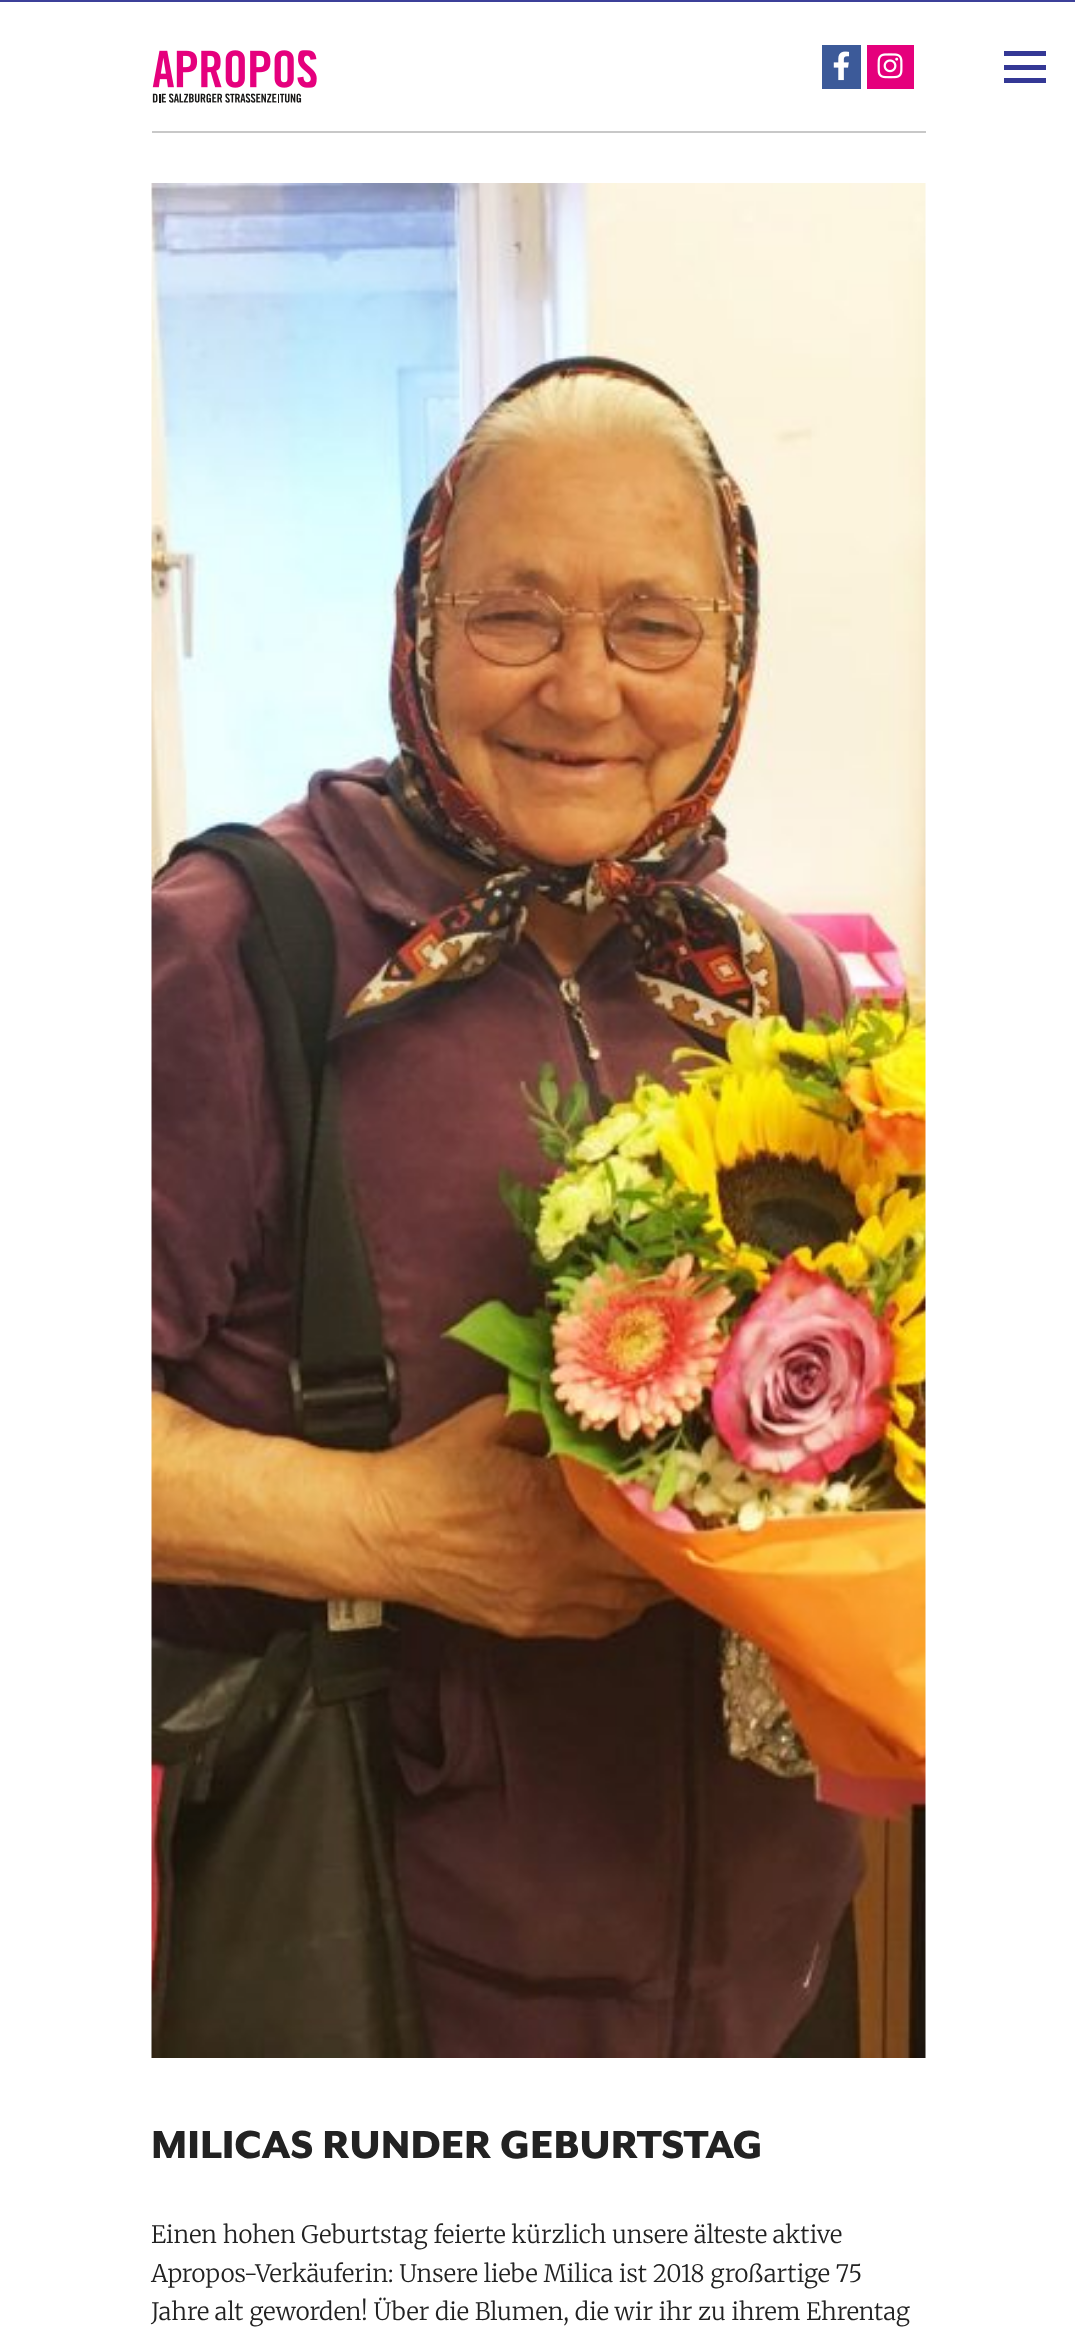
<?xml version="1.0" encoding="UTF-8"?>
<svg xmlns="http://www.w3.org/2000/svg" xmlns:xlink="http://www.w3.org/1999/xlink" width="1075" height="2343">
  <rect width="100%" height="100%" fill="#ffffff" />
  <rect width="1075" height="2" fill="#3c4099" />
  <rect x="822" y="45" width="39" height="44" fill="#3c5a99" />
  <image x="833" y="51" width="17" height="30" xlink:href="image1.png" />
  <rect x="867" y="45" width="47" height="44" fill="#e5007c" />
  <image x="877" y="53" width="26" height="26" xlink:href="image2.png" />
  <rect x="1004" y="51" width="42" height="5" fill="#343895" />
  <rect x="1004" y="65" width="42" height="5" fill="#343895" />
  <rect x="1004" y="78" width="42" height="5" fill="#343895" />
  <image x="152" y="50" width="165" height="53" xlink:href="image3.png" />
  <rect x="152" y="131" width="774" height="2" fill="#c8c8c8" />
  <image x="151" y="183" width="775" height="1875" xlink:href="image4.png" />
  <text x="151" y="2158" style="font-family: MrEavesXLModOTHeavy; font-size: 45px; font-weight: 900; fill: #222222">MILICAS RUNDER GEBURTSTAG</text>
  <text x="151" y="2243" style="font-family: Merriweather; font-size: 24px; font-weight: 300; fill: #222222">Einen hohen Geburtstag feierte kürzlich unsere älteste aktive</text>
  <text x="151" y="2282" style="font-family: Merriweather; font-size: 24px; font-weight: 300; fill: #222222">Apropos-Verkäuferin: Unsere liebe Milica ist 2018 großartige 75</text>
  <text x="151" y="2320" style="font-family: Merriweather; font-size: 24px; font-weight: 300; fill: #222222">Jahre alt geworden! Über die Blumen, die wir ihr zu ihrem Ehrentag</text>
</svg>
